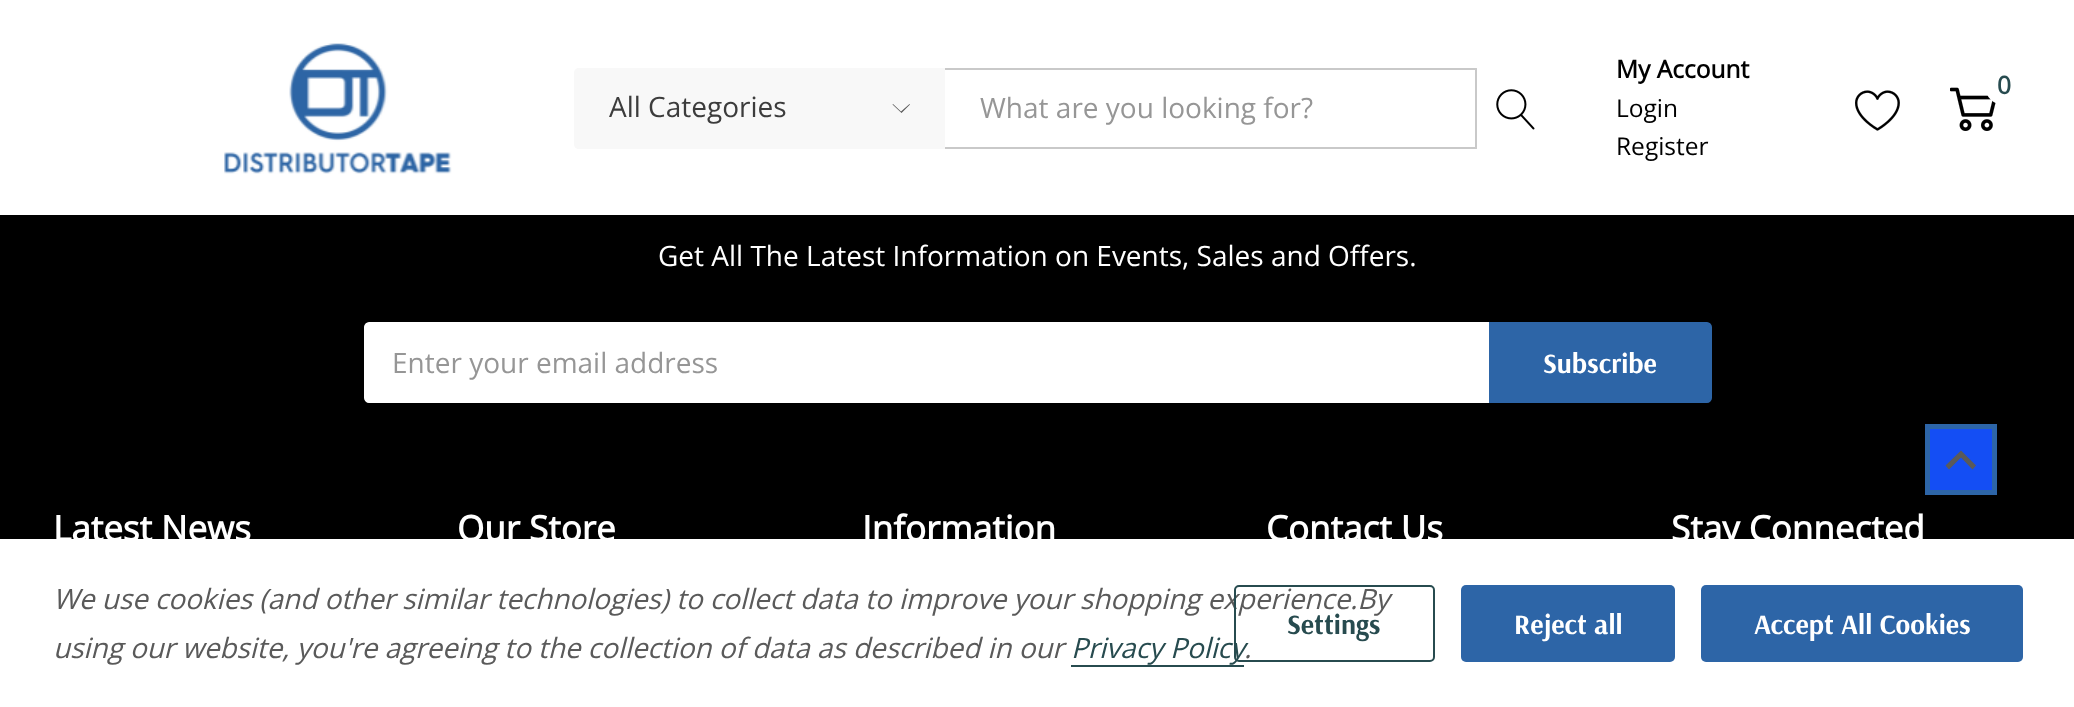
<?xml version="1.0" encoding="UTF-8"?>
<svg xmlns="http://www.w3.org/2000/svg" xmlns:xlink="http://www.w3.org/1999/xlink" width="2074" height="707">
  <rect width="100%" height="100%" fill="#000000" />
  <rect width="2074" height="215" fill="#ffffff" />
  <image x="224" y="43" width="228" height="131" xlink:href="image1.png" />
  <image x="1950" y="87" width="46" height="44" xlink:href="image2.png" />
  <circle cx="2004" cy="86" r="19" fill="#ffffff" />
  <path d="M 579 68 h 366 v 81 h -366 c -3 0 -5 -2 -5 -5 v -71 c 0 -3 2 -5 5 -5 z" fill="#f8f8f8" />
  <path d="M 901 111.5 l 8.5 -7.5 l 0.5 0.5 l -8.5 8.5 l -9 -8.5 l 0.5 -0.5 z" fill="#5a5a5a" fill-rule="evenodd" />
  <path d="M 945 68 h 532 l -2 2 h -530 z" fill="#c9c9c9" />
  <path d="M 1477 68 v 81 l -2 -2 v -77 z" fill="#000000" fill-opacity="0.21" />
  <path d="M 1477 149 h -532 v -2 h 530 z" fill="#000000" fill-opacity="0.21" />
  <image x="1496" y="89" width="39" height="41" xlink:href="image3.png" />
  <image x="1855" y="90" width="45" height="41" xlink:href="image4.png" />
  <path d="M 369 323 h 1119 v 79 h -1119 c -2 0 -4 -2 -4 -4 v -71 c 0 -2 2 -4 4 -4 z" fill="#ffffff" stroke="#ffffff" stroke-width="2" />
  <path d="M 1490 323 h 217 c 2 0 4 2 4 4 v 71 c 0 2 -2 4 -4 4 h -217 z" fill="#2d65a7" stroke="#2d65a7" stroke-width="2" />
  <rect x="1925" y="424" width="72" height="71" fill="#2d65a7" />
  <rect x="1930" y="429" width="62" height="61" fill="#144ef4" />
  <path d="M 1972.5 469.5 l -11.5 -12 l -12 12 l -3.5 -4 l 15.5 -15 l 15 15 z" fill="#5a5a5a" />
  <rect y="539" width="2074" height="168" fill="#ffffff" />
  <rect x="1071" y="665" width="173" height="2" fill="#274b4f" />
  <rect x="1461" y="585" width="214" height="77" rx="5" fill="#2d65a7" />
  <rect x="1701" y="585" width="322" height="77" rx="5" fill="#2d65a7" />
  <text x="1616" y="78" style="font-family: Open Sans; font-size: 24.5px; font-weight: bold; fill: #000000">My Account</text>
  <text x="1616" y="117" style="font-family: Open Sans; font-size: 24.5px; fill: #000000">Login</text>
  <text x="1616" y="155" style="font-family: Open Sans; font-size: 24.5px; fill: #000000">Register</text>
  <text x="1997" y="94" style="font-family: Open Sans; font-size: 24.5px; font-weight: bold; fill: #274b4f">0</text>
  <text x="609" y="117" style="font-family: Open Sans; font-size: 28px; fill: #3c3c3c">All Categories</text>
  <text x="980" y="118" style="font-family: Open Sans; font-size: 28px; fill: #969696">What are you looking for?</text>
  <text x="658" y="266" style="font-family: Open Sans; font-size: 28px; fill: #ffffff">Get All The Latest Information on Events, Sales and Offers.</text>
  <text x="392" y="373" style="font-family: Open Sans; font-size: 28px; fill: #969696">Enter your email address</text>
  <text x="1543" y="373" style="font-family: Arsenal; font-size: 28px; font-weight: bold; fill: #ffffff">Subscribe</text>
  <text x="53" y="541" style="font-family: Open Sans; font-size: 35px; font-weight: bold; fill: #ffffff">Latest News</text>
  <text x="457" y="541" style="font-family: Open Sans; font-size: 35px; font-weight: bold; fill: #ffffff">Our Store</text>
  <text x="862" y="541" style="font-family: Open Sans; font-size: 35px; font-weight: bold; fill: #ffffff">Information</text>
  <text x="1266" y="541" style="font-family: Open Sans; font-size: 35px; font-weight: bold; fill: #ffffff">Contact Us</text>
  <text x="1671" y="541" style="font-family: Open Sans; font-size: 35px; font-weight: bold; fill: #ffffff">Stay Connected</text>
  <text x="53" y="609" style="font-family: Open Sans; font-size: 28px; font-style: italic; letter-spacing: -0.09px; fill: #5a5a5a">We use cookies (and other similar technologies) to collect data to improve your shopping experience.By</text>
  <text x="53" y="658" style="font-family: Open Sans; font-size: 28px; font-style: italic; letter-spacing: -0.09px; fill: #5a5a5a">using our website, you're agreeing to the collection of data as described in our</text>
  <text x="1244" y="658" style="font-family: Open Sans; font-size: 28px; font-style: italic; letter-spacing: -0.09px; fill: #5a5a5a">.</text>
  <rect x="1235" y="586" width="199" height="75" rx="4" fill="none" stroke="#274b4f" stroke-width="2" />
  <text x="1071" y="658" style="font-family: Open Sans; font-size: 28px; font-style: italic; letter-spacing: -0.09px; fill: #274b4f">Privacy Policy</text>
  <text x="1287" y="634" style="font-family: Arsenal; font-size: 28px; font-weight: bold; fill: #274b4f">Settings</text>
  <text x="1514" y="634" style="font-family: Arsenal; font-size: 28px; font-weight: bold; fill: #ffffff">Reject all</text>
  <text x="1754" y="634" style="font-family: Arsenal; font-size: 28px; font-weight: bold; fill: #ffffff">Accept All Cookies</text>
</svg>
